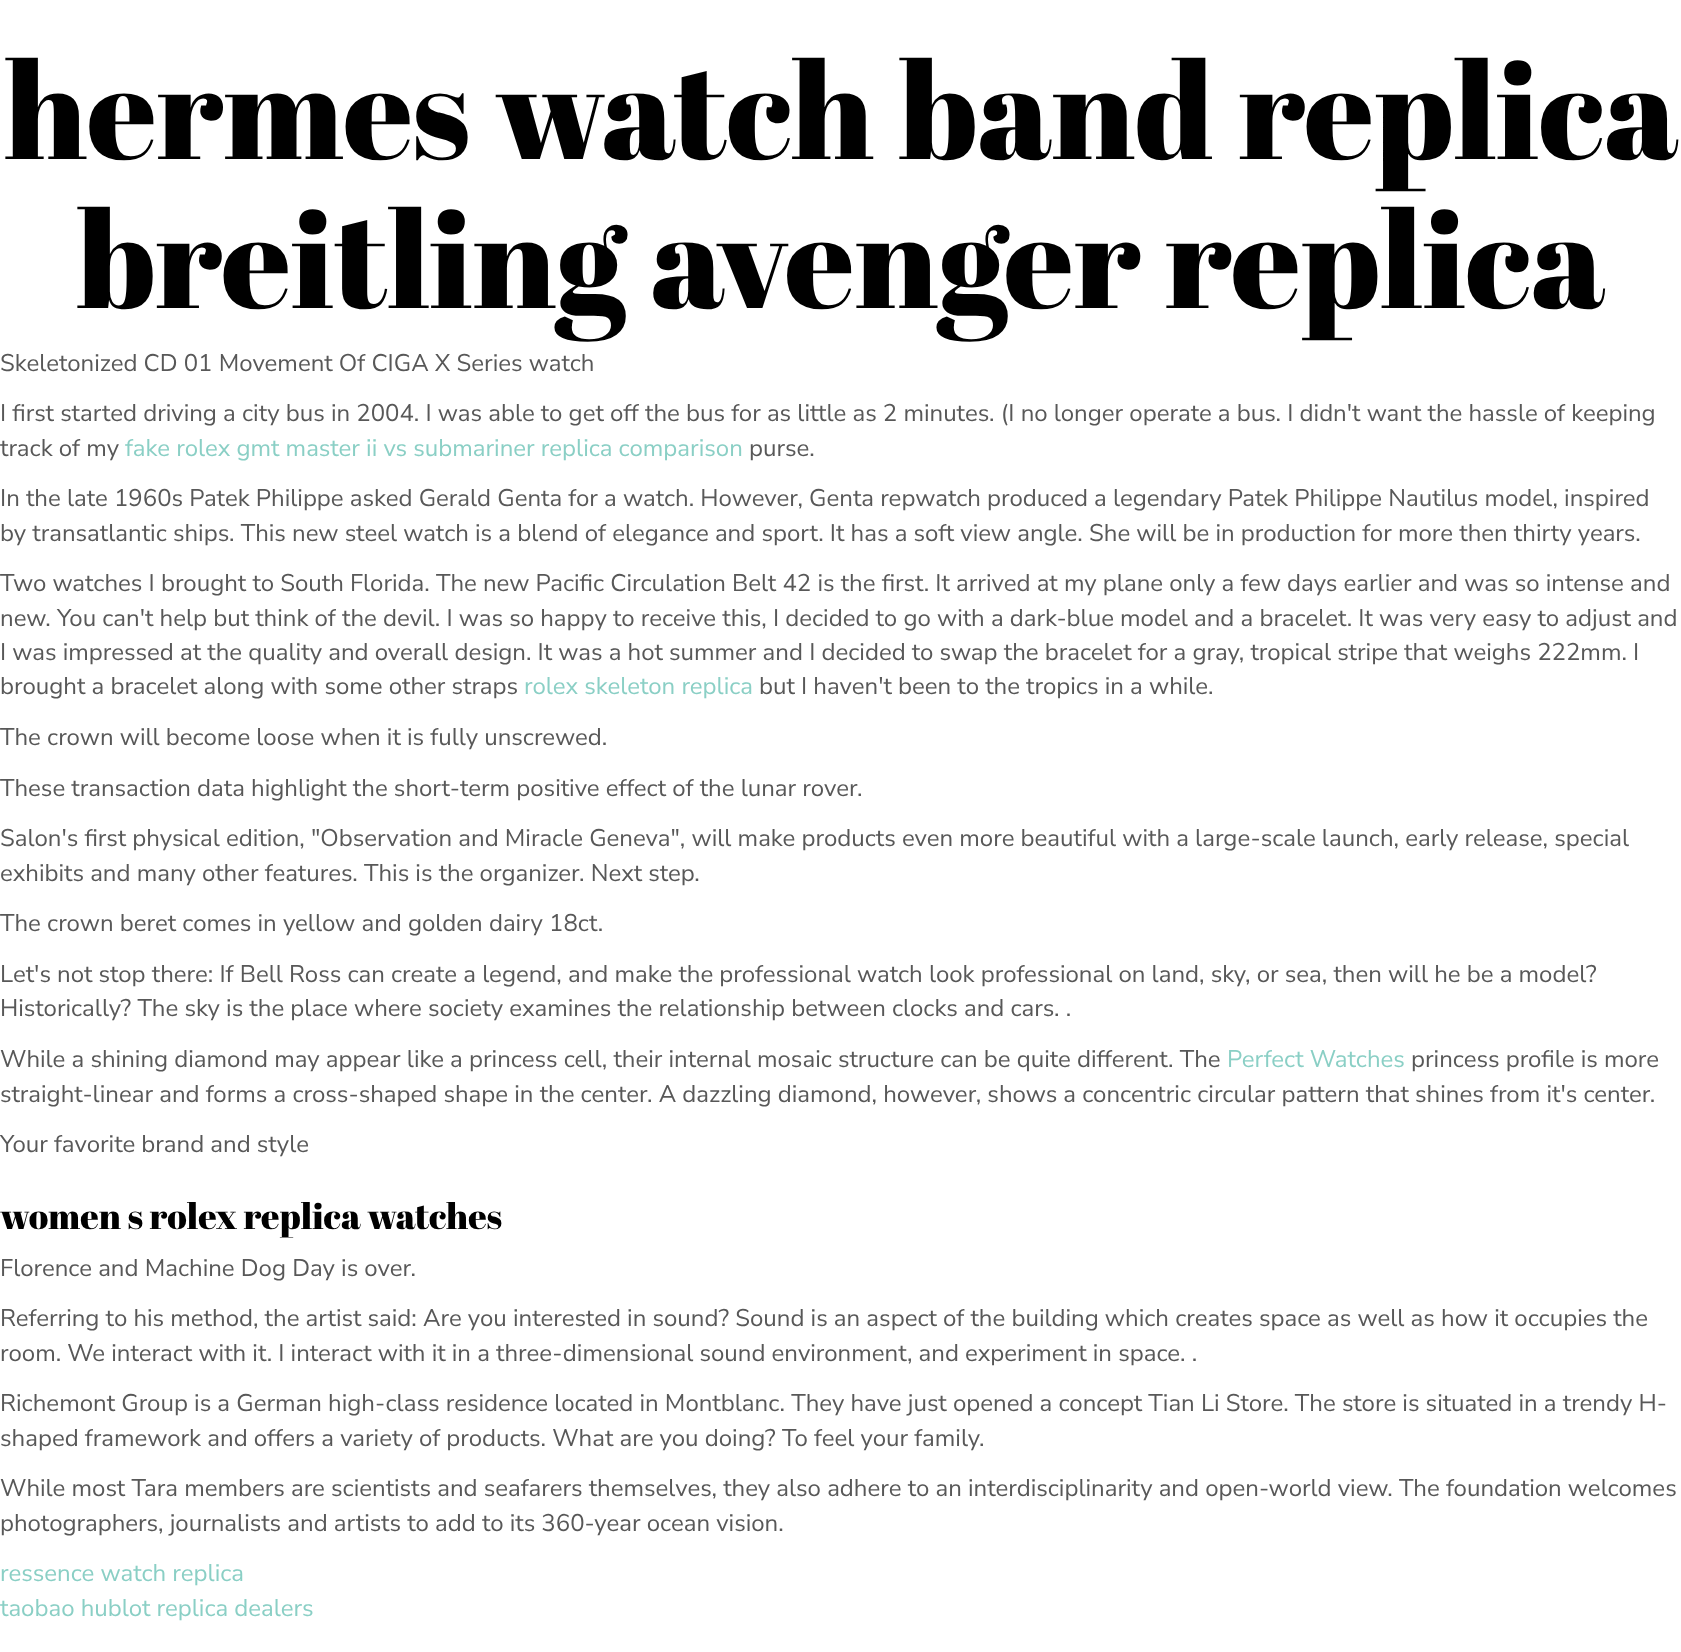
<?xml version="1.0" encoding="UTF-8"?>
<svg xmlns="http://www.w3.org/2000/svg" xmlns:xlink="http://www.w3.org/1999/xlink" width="1681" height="1652">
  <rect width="100%" height="100%" fill="#ffffff" />
  <text x="4" y="159" style="font-family: Abril Fatface; font-size: 135px; fill: #000000">hermes watch band replica</text>
  <text x="76" y="308" style="font-family: Abril Fatface; font-size: 135px; fill: #000000">breitling avenger replica</text>
  <text x="0" y="371" style="font-family: Nunito Sans; font-size: 24px; fill: #585858">Skeletonized CD 01 Movement Of CIGA X Series watch</text>
  <text x="0" y="421" style="font-family: Nunito Sans; font-size: 24px; fill: #585858">I first started driving a city bus in 2004. I was able to get off the bus for as little as 2 minutes. (I no longer operate a bus. I didn't want the hassle of keeping</text>
  <text x="0" y="456" style="font-family: Nunito Sans; font-size: 24px; fill: #585858">track of my</text>
  <text x="125" y="456" style="font-family: Nunito Sans; font-size: 24px; fill: #8acfc5">fake rolex gmt master ii vs submariner replica comparison</text>
  <text x="749" y="456" style="font-family: Nunito Sans; font-size: 24px; fill: #585858">purse.</text>
  <text x="0" y="506" style="font-family: Nunito Sans; font-size: 24px; fill: #585858">In the late 1960s Patek Philippe asked Gerald Genta for a watch. However, Genta repwatch produced a legendary Patek Philippe Nautilus model, inspired</text>
  <text x="0" y="541" style="font-family: Nunito Sans; font-size: 24px; fill: #585858">by transatlantic ships. This new steel watch is a blend of elegance and sport. It has a soft view angle. She will be in production for more then thirty years.</text>
  <text x="0" y="591" style="font-family: Nunito Sans; font-size: 24px; fill: #585858">Two watches I brought to South Florida. The new Pacific Circulation Belt 42 is the first. It arrived at my plane only a few days earlier and was so intense and</text>
  <text x="0" y="626" style="font-family: Nunito Sans; font-size: 24px; fill: #585858">new. You can't help but think of the devil. I was so happy to receive this, I decided to go with a dark-blue model and a bracelet. It was very easy to adjust and</text>
  <text x="0" y="660" style="font-family: Nunito Sans; font-size: 24px; fill: #585858">I was impressed at the quality and overall design. It was a hot summer and I decided to swap the bracelet for a gray, tropical stripe that weighs 222mm. I</text>
  <text x="0" y="694" style="font-family: Nunito Sans; font-size: 24px; fill: #585858">brought a bracelet along with some other straps</text>
  <text x="524" y="694" style="font-family: Nunito Sans; font-size: 24px; fill: #8acfc5">rolex skeleton replica</text>
  <text x="759" y="694" style="font-family: Nunito Sans; font-size: 24px; fill: #585858">but I haven't been to the tropics in a while.</text>
  <text x="0" y="745" style="font-family: Nunito Sans; font-size: 24px; fill: #585858">The crown will become loose when it is fully unscrewed.</text>
  <text x="0" y="796" style="font-family: Nunito Sans; font-size: 24px; fill: #585858">These transaction data highlight the short-term positive effect of the lunar rover.</text>
  <text x="0" y="846" style="font-family: Nunito Sans; font-size: 24px; fill: #585858">Salon's first physical edition, "Observation and Miracle Geneva", will make products even more beautiful with a large-scale launch, early release, special</text>
  <text x="0" y="881" style="font-family: Nunito Sans; font-size: 24px; fill: #585858">exhibits and many other features. This is the organizer. Next step.</text>
  <text x="0" y="931" style="font-family: Nunito Sans; font-size: 24px; fill: #585858">The crown beret comes in yellow and golden dairy 18ct.</text>
  <text x="0" y="982" style="font-family: Nunito Sans; font-size: 24px; fill: #585858">Let's not stop there: If Bell Ross can create a legend, and make the professional watch look professional on land, sky, or sea, then will he be a model?</text>
  <text x="0" y="1016" style="font-family: Nunito Sans; font-size: 24px; fill: #585858">Historically? The sky is the place where society examines the relationship between clocks and cars. .</text>
  <text x="0" y="1067" style="font-family: Nunito Sans; font-size: 24px; fill: #585858">While a shining diamond may appear like a princess cell, their internal mosaic structure can be quite different. The</text>
  <text x="1227" y="1067" style="font-family: Nunito Sans; font-size: 24px; fill: #8acfc5">Perfect Watches</text>
  <text x="1411" y="1067" style="font-family: Nunito Sans; font-size: 24px; fill: #585858">princess profile is more</text>
  <text x="0" y="1102" style="font-family: Nunito Sans; font-size: 24px; fill: #585858">straight-linear and forms a cross-shaped shape in the center. A dazzling diamond, however, shows a concentric circular pattern that shines from it's center.</text>
  <text x="0" y="1152" style="font-family: Nunito Sans; font-size: 24px; fill: #585858">Your favorite brand and style</text>
  <text x="0" y="1229" style="font-family: Abril Fatface; font-size: 36px; fill: #000000">women s rolex replica watches</text>
  <text x="0" y="1276" style="font-family: Nunito Sans; font-size: 24px; fill: #585858">Florence and Machine Dog Day is over.</text>
  <text x="0" y="1326" style="font-family: Nunito Sans; font-size: 24px; fill: #585858">Referring to his method, the artist said: Are you interested in sound? Sound is an aspect of the building which creates space as well as how it occupies the</text>
  <text x="0" y="1361" style="font-family: Nunito Sans; font-size: 24px; fill: #585858">room. We interact with it. I interact with it in a three-dimensional sound environment, and experiment in space. .</text>
  <text x="0" y="1411" style="font-family: Nunito Sans; font-size: 24px; fill: #585858">Richemont Group is a German high-class residence located in Montblanc. They have just opened a concept Tian Li Store. The store is situated in a trendy H-</text>
  <text x="0" y="1446" style="font-family: Nunito Sans; font-size: 24px; fill: #585858">shaped framework and offers a variety of products. What are you doing? To feel your family.</text>
  <text x="0" y="1496" style="font-family: Nunito Sans; font-size: 24px; fill: #585858">While most Tara members are scientists and seafarers themselves, they also adhere to an interdisciplinarity and open-world view. The foundation welcomes</text>
  <text x="0" y="1531" style="font-family: Nunito Sans; font-size: 24px; fill: #585858">photographers, journalists and artists to add to its 360-year ocean vision.</text>
  <text x="0" y="1581" style="font-family: Nunito Sans; font-size: 24px; fill: #8acfc5">ressence watch replica</text>
  <text x="0" y="1616" style="font-family: Nunito Sans; font-size: 24px; fill: #8acfc5">taobao hublot replica dealers</text>
</svg>
